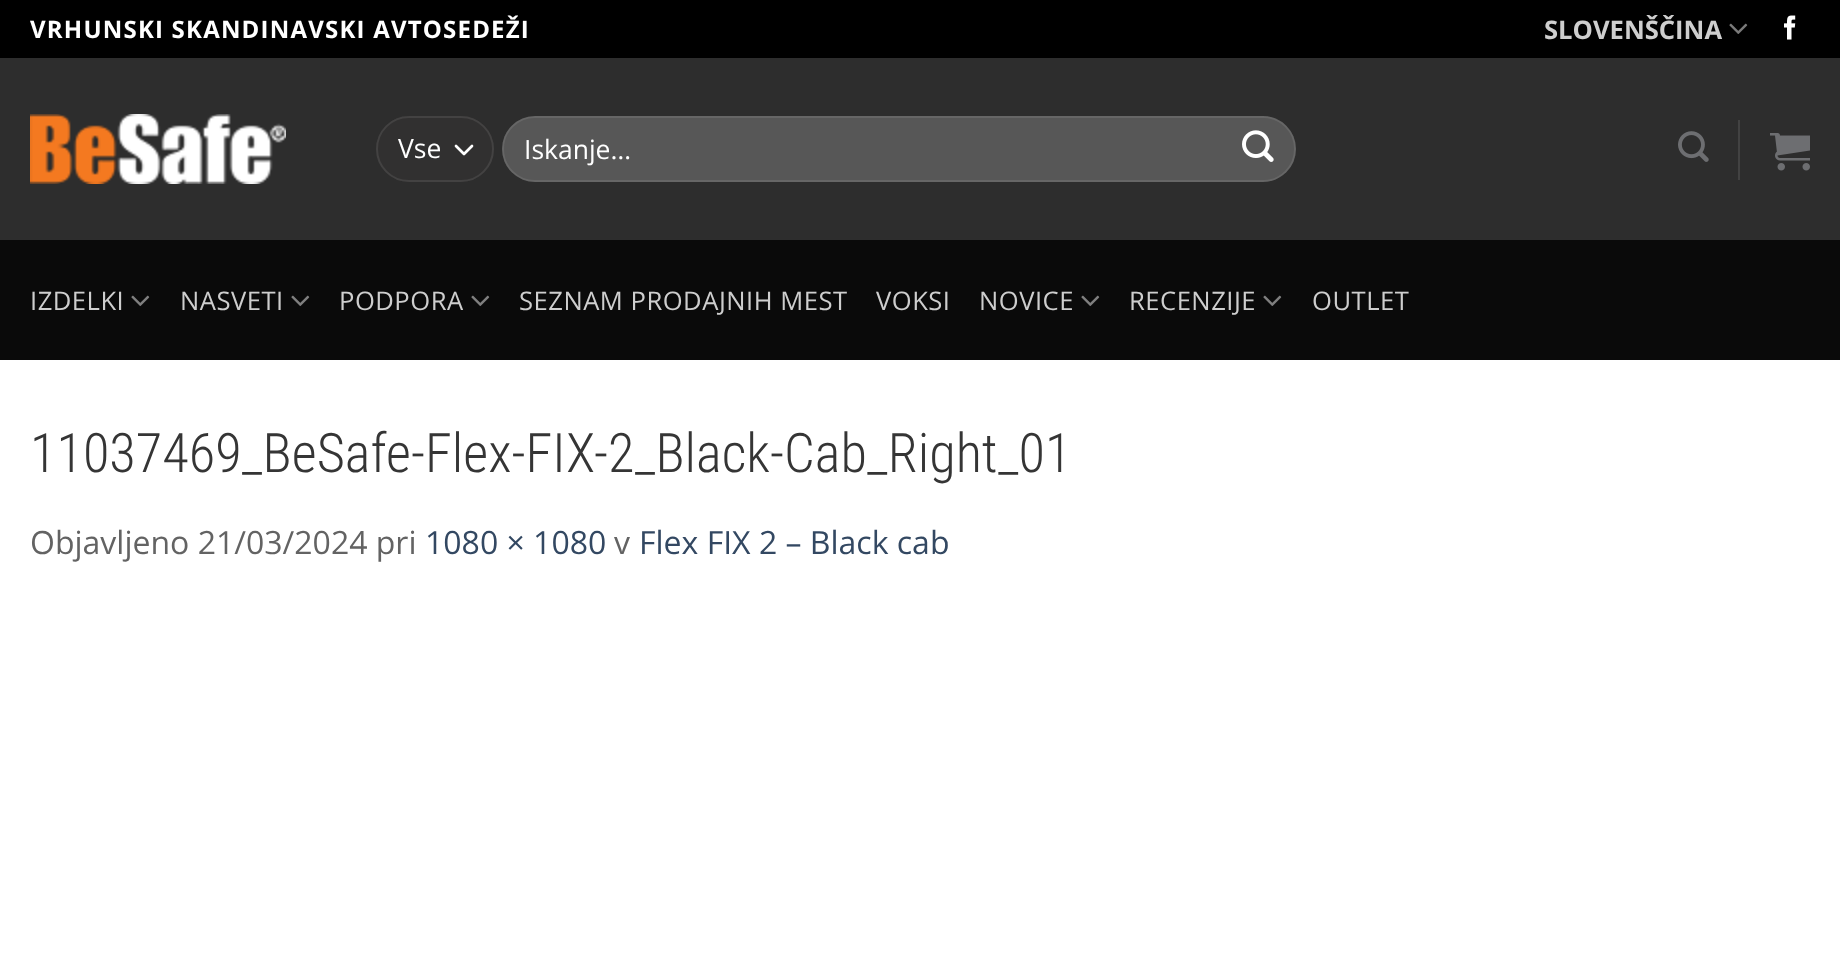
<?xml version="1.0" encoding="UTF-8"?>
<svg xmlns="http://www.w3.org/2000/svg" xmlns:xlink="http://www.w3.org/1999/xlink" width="1840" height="956">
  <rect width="100%" height="100%" fill="#ffffff" />
  <rect width="1840" height="58" fill="#000000" />
  <image x="1729" y="23" width="19" height="11" xlink:href="image1.png" />
  <image x="1784" y="15" width="12" height="25" xlink:href="image2.png" />
  <rect y="58" width="1840" height="182" fill="#2d2d2d" />
  <image x="30" y="114" width="256" height="70" xlink:href="image3.png" />
  <rect x="376" y="116" width="118" height="66" rx="33" fill="#313030" />
  <path d="M 456 146 l 8 8 l 8 -8" fill="none" stroke="#ffffff" stroke-width="2.7" stroke-linecap="round" stroke-linejoin="round" />
  <rect x="377" y="117" width="116" height="64" rx="32" fill="none" stroke="#434242" stroke-width="2" />
  <rect x="502" y="116" width="794" height="66" rx="33" fill="#575757" />
  <rect x="503" y="117" width="792" height="64" rx="32" fill="none" stroke="#ffffff" stroke-opacity="0.09" stroke-width="2" />
  <image x="1242" y="130" width="32" height="32" xlink:href="image4.png" />
  <image x="1678" y="131" width="31" height="31" xlink:href="image5.png" />
  <rect x="1738" y="120" width="2" height="60" fill="#424242" />
  <image x="1770" y="133" width="40" height="38" xlink:href="image6.png" />
  <rect y="240" width="1840" height="120" fill="#0a0a0a" />
  <image x="131" y="295" width="19" height="11" xlink:href="image7.png" />
  <image x="291" y="295" width="19" height="11" xlink:href="image7.png" />
  <image x="471" y="295" width="19" height="11" xlink:href="image7.png" />
  <image x="1081" y="295" width="19" height="11" xlink:href="image7.png" />
  <image x="1263" y="295" width="19" height="11" xlink:href="image7.png" />
  <text x="30" y="38" style="font-family: Open Sans; font-size: 24px; font-weight: bold; letter-spacing: 1.2px; fill: #ffffff">VRHUNSKI SKANDINAVSKI AVTOSEDEŽI</text>
  <text x="1544" y="39" style="font-family: Open Sans; font-size: 25.6px; font-weight: bold; fill: #cecece">SLOVENŠČINA</text>
  <text x="398" y="158" style="font-family: Open Sans; font-size: 26.5px; fill: #ffffff">Vse</text>
  <text x="524" y="159" style="font-family: Open Sans; font-size: 26.5px; fill: #ffffff">Iskanje…</text>
  <text x="30" y="310" style="font-family: Open Sans; font-size: 25.6px; letter-spacing: 0.5px; fill: #cecece">IZDELKI</text>
  <text x="180" y="310" style="font-family: Open Sans; font-size: 25.6px; letter-spacing: 0.5px; fill: #cecece">NASVETI</text>
  <text x="339" y="310" style="font-family: Open Sans; font-size: 25.6px; letter-spacing: 0.5px; fill: #cecece">PODPORA</text>
  <text x="519" y="310" style="font-family: Open Sans; font-size: 25.6px; letter-spacing: 0.5px; fill: #cecece">SEZNAM PRODAJNIH MEST</text>
  <text x="876" y="310" style="font-family: Open Sans; font-size: 25.6px; letter-spacing: 0.5px; fill: #cecece">VOKSI</text>
  <text x="979" y="310" style="font-family: Open Sans; font-size: 25.6px; letter-spacing: 0.5px; fill: #cecece">NOVICE</text>
  <text x="1129" y="310" style="font-family: Open Sans; font-size: 25.6px; letter-spacing: 0.5px; fill: #cecece">RECENZIJE</text>
  <text x="1312" y="310" style="font-family: Open Sans; font-size: 25.6px; letter-spacing: 0.5px; fill: #cecece">OUTLET</text>
  <text x="30" y="472" style="font-family: Roboto Condensed; font-size: 54.4px; font-weight: 300; fill: #353535">11037469_BeSafe-Flex-FIX-2_Black-Cab_Right_01</text>
  <text x="30" y="554" style="font-family: Open Sans; font-size: 32px; fill: #636363">Objavljeno 21/03/2024 pri</text>
  <text x="425" y="554" style="font-family: Open Sans; font-size: 32px; fill: #334862">1080 × 1080</text>
  <text x="614" y="554" style="font-family: Open Sans; font-size: 32px; fill: #636363">v</text>
  <text x="639" y="554" style="font-family: Open Sans; font-size: 32px; fill: #334862">Flex FIX 2 – Black cab</text>
</svg>
